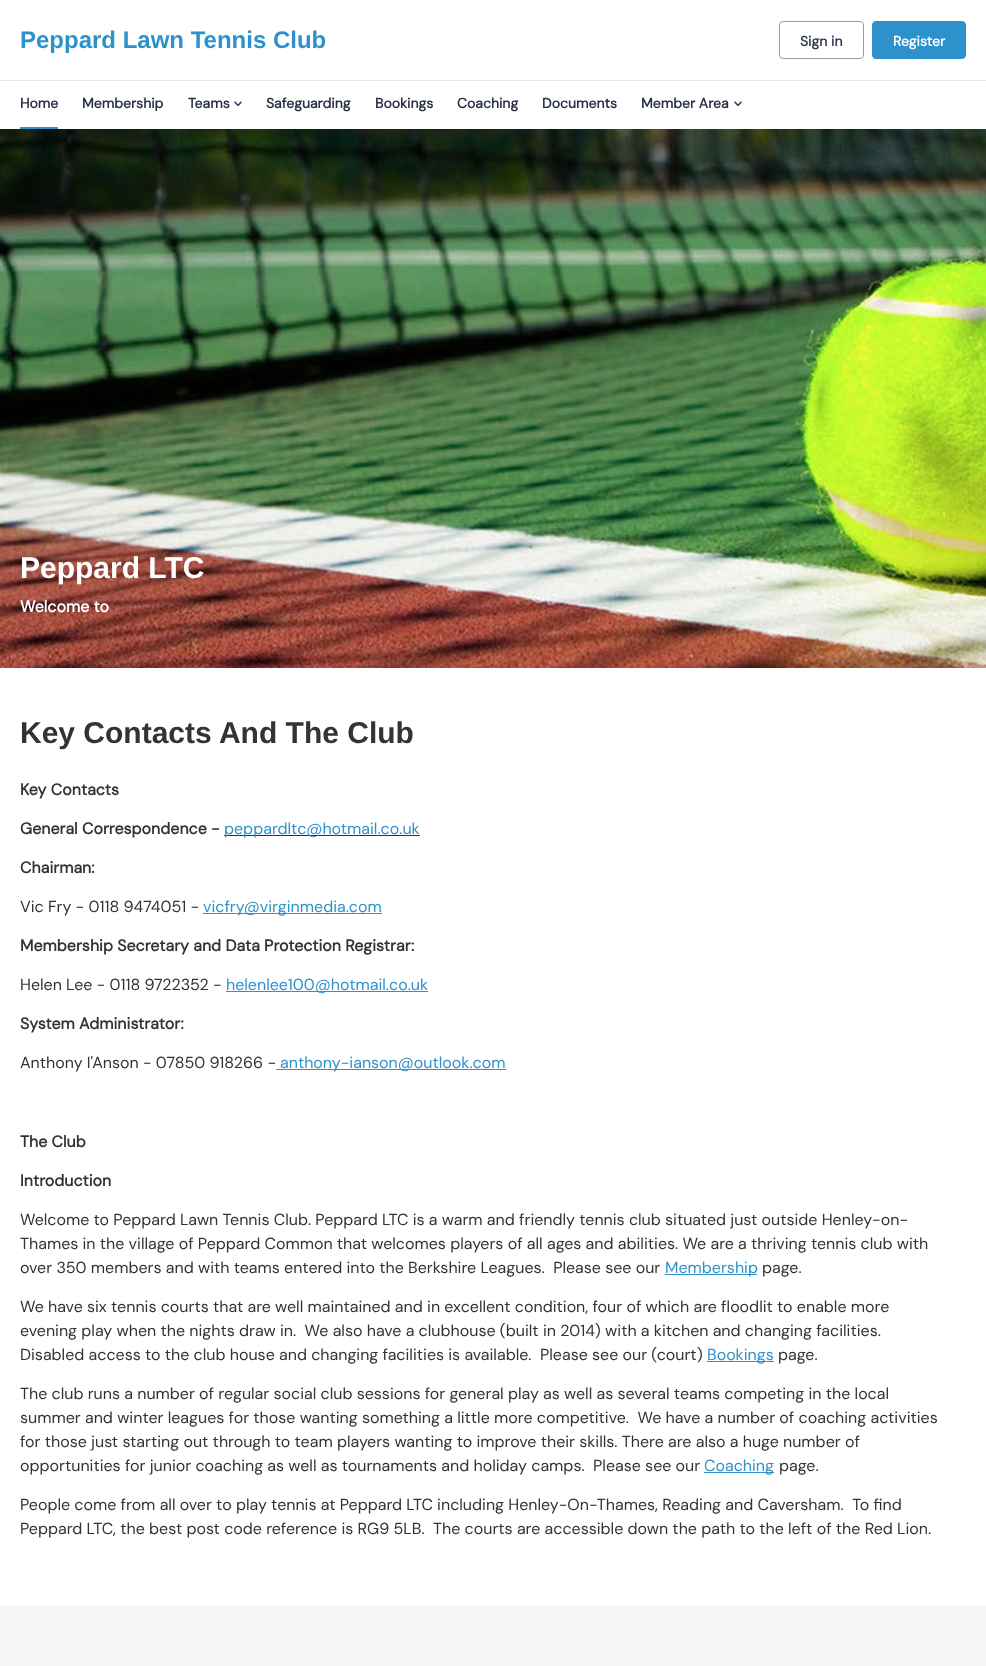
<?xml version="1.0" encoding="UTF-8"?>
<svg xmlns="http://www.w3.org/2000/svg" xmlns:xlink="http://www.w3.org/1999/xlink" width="986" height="1666">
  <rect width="100%" height="100%" fill="#ffffff" />
  <image x="0" y="129" width="986" height="539" xlink:href="image2.png" />
  <rect y="2" width="986" height="129" fill="#141d37" fill-opacity="0.06" filter="blur(3px)" />
  <rect width="986" height="129" fill="#ffffff" />
  <rect x="779.5" y="21.5" width="84" height="37" rx="3.5" fill="none" stroke="#989ca7" />
  <rect x="872.5" y="21.5" width="93" height="37" rx="3.5" fill="#2d92cc" stroke="#2d92cc" />
  <rect y="80" width="986" height="1" fill="#e3e5eb" />
  <rect x="20" y="127" width="38" height="2" fill="#2d92cc" />
  <image x="234" y="101" width="8" height="6" xlink:href="image1.png" />
  <image x="734" y="101" width="8" height="6" xlink:href="image1.png" />
  <rect x="224" y="835" width="196" height="1" fill="#333333" />
  <rect x="203" y="913" width="179" height="1" fill="#2d92cc" />
  <rect x="226" y="991" width="202" height="1" fill="#2d92cc" />
  <rect x="276" y="1069" width="230" height="1" fill="#2d92cc" />
  <rect x="665" y="1274" width="92" height="1" fill="#2d92cc" />
  <rect x="707" y="1361" width="67" height="1" fill="#2d92cc" />
  <rect x="704" y="1472" width="70" height="1" fill="#2d92cc" />
  <rect y="1606" width="986" height="60" fill="#f6f6f6" />
  <text x="20" y="48" style="font-family: Liberation Sans; font-size: 24px; font-weight: bold; fill: #2d92cc">Peppard Lawn Tennis Club</text>
  <text x="800" y="46" style="font-family: DM Sans; font-size: 14px; font-weight: bold; fill: #323950">Sign in</text>
  <text x="893" y="46" style="font-family: DM Sans; font-size: 14px; font-weight: bold; fill: #ffffff">Register</text>
  <text x="20" y="108" style="font-family: DM Sans; font-size: 14px; font-weight: bold; fill: #272f45">Home</text>
  <text x="82" y="108" style="font-family: DM Sans; font-size: 14px; font-weight: bold; fill: #272f45">Membership</text>
  <text x="188" y="108" style="font-family: DM Sans; font-size: 14px; font-weight: bold; fill: #272f45">Teams</text>
  <text x="266" y="108" style="font-family: DM Sans; font-size: 14px; font-weight: bold; fill: #272f45">Safeguarding</text>
  <text x="375" y="108" style="font-family: DM Sans; font-size: 14px; font-weight: bold; fill: #272f45">Bookings</text>
  <text x="457" y="108" style="font-family: DM Sans; font-size: 14px; font-weight: bold; fill: #272f45">Coaching</text>
  <text x="542" y="108" style="font-family: DM Sans; font-size: 14px; font-weight: bold; fill: #272f45">Documents</text>
  <text x="641" y="108" style="font-family: DM Sans; font-size: 14px; font-weight: bold; fill: #272f45">Member Area</text>
  <text x="20" y="578" style="font-family: Liberation Sans; font-size: 30px; font-weight: bold; fill: #ffffff">Peppard LTC</text>
  <text x="20" y="612" style="font-family: DM Sans; font-size: 16px; font-weight: bold; fill: #ffffff">Welcome to</text>
  <text x="20" y="743" style="font-family: Liberation Sans; font-size: 30px; font-weight: bold; fill: #333333">Key Contacts And The Club</text>
  <text x="20" y="795" style="font-family: DM Sans; font-size: 16px; font-weight: bold; fill: #333333">Key Contacts</text>
  <text x="20" y="834" style="font-family: DM Sans; font-size: 16px; font-weight: bold; fill: #333333">General Correspondence -</text>
  <text x="224" y="834" style="font-family: DM Sans; font-size: 16px; fill: #2d92cc">peppardltc@hotmail.co.uk</text>
  <text x="20" y="873" style="font-family: DM Sans; font-size: 16px; font-weight: bold; fill: #333333">Chairman:</text>
  <text x="20" y="912" style="font-family: DM Sans; font-size: 16px; fill: #333333">Vic Fry - 0118 9474051 -</text>
  <text x="203" y="912" style="font-family: DM Sans; font-size: 16px; fill: #2d92cc">vicfry@virginmedia.com</text>
  <text x="20" y="951" style="font-family: DM Sans; font-size: 16px; font-weight: bold; fill: #333333">Membership Secretary and Data Protection Registrar:</text>
  <text x="20" y="990" style="font-family: DM Sans; font-size: 16px; fill: #333333">Helen Lee - 0118 9722352 -</text>
  <text x="226" y="990" style="font-family: DM Sans; font-size: 16px; fill: #2d92cc">helenlee100@hotmail.co.uk</text>
  <text x="20" y="1029" style="font-family: DM Sans; font-size: 16px; font-weight: bold; fill: #333333">System Administrator:</text>
  <text x="20" y="1068" style="font-family: DM Sans; font-size: 16px; fill: #333333">Anthony I'Anson - 07850 918266 -</text>
  <text x="280" y="1068" style="font-family: DM Sans; font-size: 16px; fill: #2d92cc">anthony-ianson@outlook.com</text>
  <text x="20" y="1147" style="font-family: DM Sans; font-size: 16px; font-weight: bold; fill: #333333">The Club</text>
  <text x="20" y="1186" style="font-family: DM Sans; font-size: 16px; font-weight: bold; fill: #333333">Introduction</text>
  <text x="20" y="1225" style="font-family: DM Sans; font-size: 16px; fill: #333333">Welcome to Peppard Lawn Tennis Club. Peppard LTC is a warm and friendly tennis club situated just outside Henley-on-</text>
  <text x="20" y="1249" style="font-family: DM Sans; font-size: 16px; fill: #333333">Thames in the village of Peppard Common that welcomes players of all ages and abilities. We are a thriving tennis club with</text>
  <text x="20" y="1273" style="font-family: DM Sans; font-size: 16px; fill: #333333" xml:space="preserve">over 350 members and with teams entered into the Berkshire Leagues.  Please see our</text>
  <text x="665" y="1273" style="font-family: DM Sans; font-size: 16px; fill: #2d92cc">Membership</text>
  <text x="762" y="1273" style="font-family: DM Sans; font-size: 16px; fill: #333333">page.</text>
  <text x="20" y="1312" style="font-family: DM Sans; font-size: 16px; fill: #333333">We have six tennis courts that are well maintained and in excellent condition, four of which are floodlit to enable more</text>
  <text x="20" y="1336" style="font-family: DM Sans; font-size: 16px; fill: #333333" xml:space="preserve">evening play when the nights draw in.  We also have a clubhouse (built in 2014) with a kitchen and changing facilities.</text>
  <text x="20" y="1360" style="font-family: DM Sans; font-size: 16px; fill: #333333" xml:space="preserve">Disabled access to the club house and changing facilities is available.  Please see our (court)</text>
  <text x="707" y="1360" style="font-family: DM Sans; font-size: 16px; fill: #2d92cc">Bookings</text>
  <text x="778" y="1360" style="font-family: DM Sans; font-size: 16px; fill: #333333">page.</text>
  <text x="20" y="1399" style="font-family: DM Sans; font-size: 16px; fill: #333333">The club runs a number of regular social club sessions for general play as well as several teams competing in the local</text>
  <text x="20" y="1423" style="font-family: DM Sans; font-size: 16px; fill: #333333" xml:space="preserve">summer and winter leagues for those wanting something a little more competitive.  We have a number of coaching activities</text>
  <text x="20" y="1447" style="font-family: DM Sans; font-size: 16px; fill: #333333">for those just starting out through to team players wanting to improve their skills. There are also a huge number of</text>
  <text x="20" y="1471" style="font-family: DM Sans; font-size: 16px; fill: #333333" xml:space="preserve">opportunities for junior coaching as well as tournaments and holiday camps.  Please see our</text>
  <text x="704" y="1471" style="font-family: DM Sans; font-size: 16px; fill: #2d92cc">Coaching</text>
  <text x="779" y="1471" style="font-family: DM Sans; font-size: 16px; fill: #333333">page.</text>
  <text x="20" y="1510" style="font-family: DM Sans; font-size: 16px; fill: #333333" xml:space="preserve">People come from all over to play tennis at Peppard LTC including Henley-On-Thames, Reading and Caversham.  To find</text>
  <text x="20" y="1534" style="font-family: DM Sans; font-size: 16px; fill: #333333" xml:space="preserve">Peppard LTC, the best post code reference is RG9 5LB.  The courts are accessible down the path to the left of the Red Lion.</text>
</svg>
